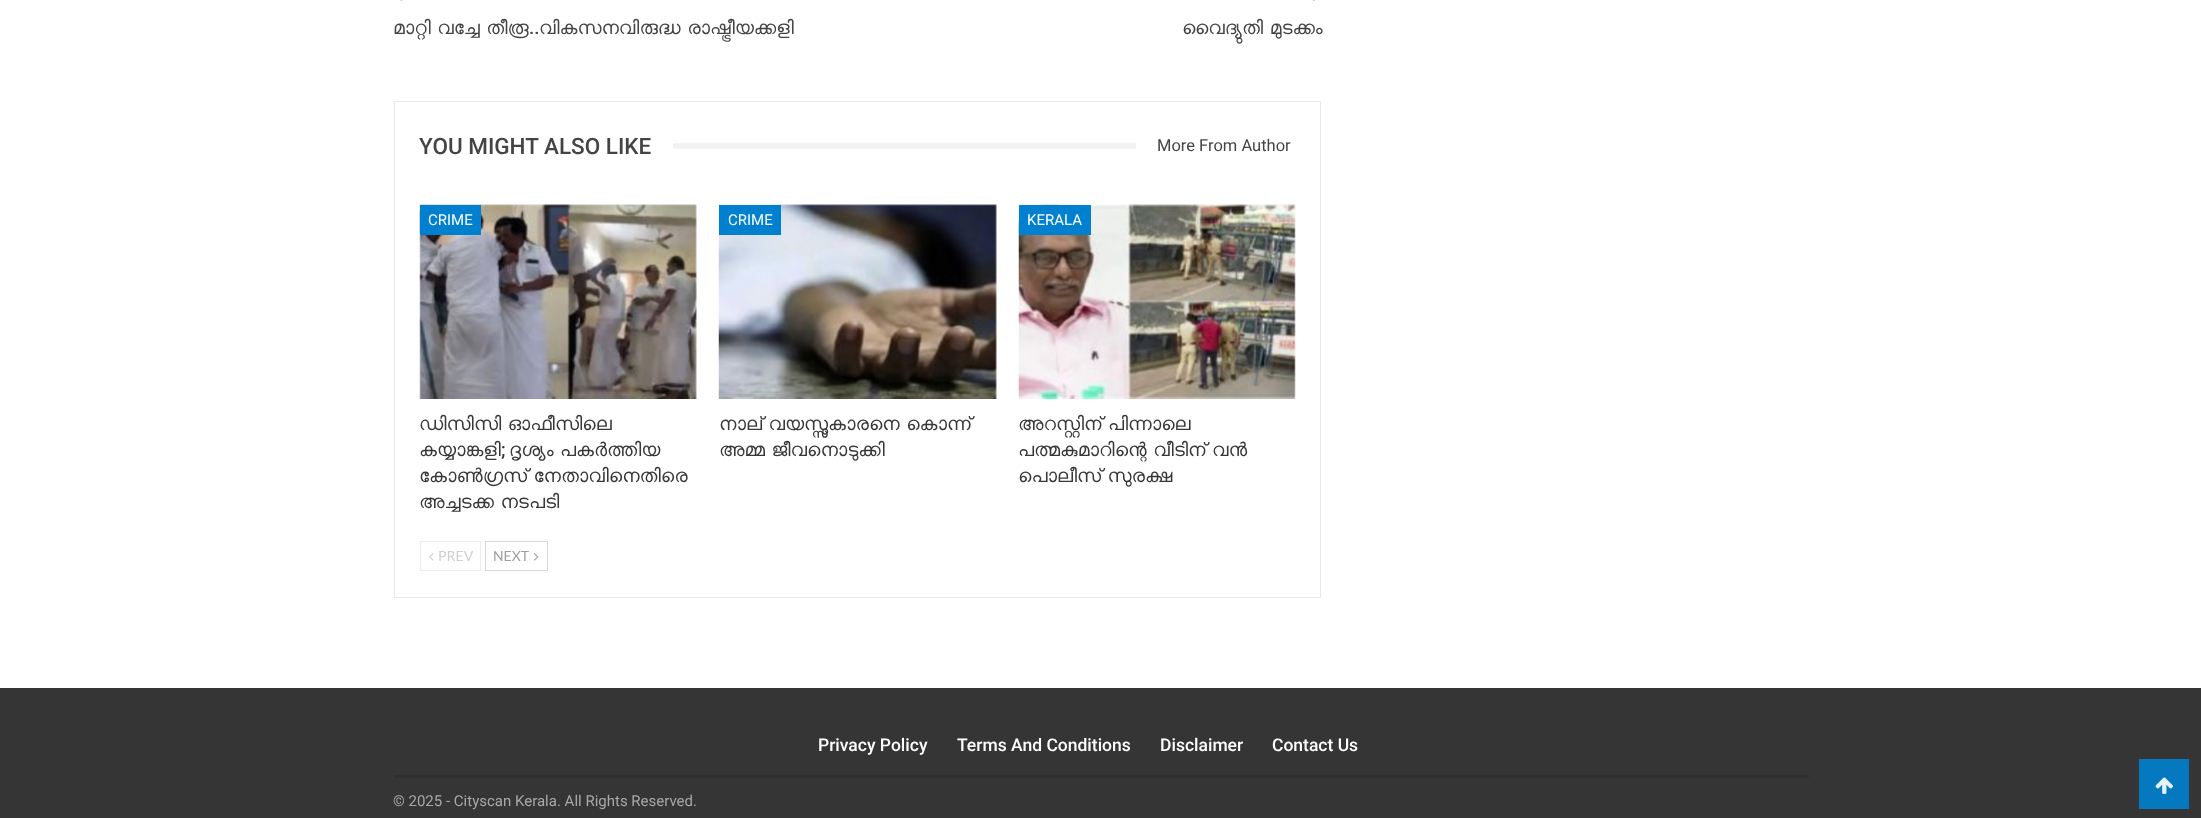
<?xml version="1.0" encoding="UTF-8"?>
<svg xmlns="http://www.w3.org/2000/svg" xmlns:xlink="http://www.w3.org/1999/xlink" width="2201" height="818">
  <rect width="100%" height="100%" fill="#ffffff" />
  <image x="400" y="0" width="3" height="1" xlink:href="image1.png" />
  <image x="1312" y="0" width="3" height="1" xlink:href="image2.png" />
  <rect x="394.5" y="101.5" width="926" height="496" fill="none" stroke="#e8e8e8" />
  <rect x="673" y="143" width="463" height="6" fill="#f2f2f2" />
  <image x="419" y="204" width="278" height="195" xlink:href="image3.png" />
  <rect x="420" y="205" width="61" height="30" fill="#0080ce" />
  <image x="718" y="204" width="279" height="195" xlink:href="image4.png" />
  <rect x="719" y="205" width="62" height="30" fill="#0080ce" />
  <image x="1018" y="204" width="278" height="195" xlink:href="image5.png" />
  <rect x="1019" y="205" width="72" height="30" fill="#0080ce" />
  <rect x="420.5" y="541.5" width="60" height="29" fill="none" stroke="#ececec" />
  <image x="429" y="553" width="5" height="8" xlink:href="image6.png" />
  <rect x="485.5" y="541.5" width="62" height="29" fill="none" stroke="#d8d8d8" />
  <image x="533" y="553" width="6" height="8" xlink:href="image7.png" />
  <rect y="688" width="2201" height="130" fill="#353535" />
  <rect x="394" y="775" width="1415" height="3" fill="#2f2f2f" />
  <rect x="2139" y="759" width="50" height="50" fill="#0579bf" />
  <image x="2155" y="777" width="18" height="17" xlink:href="image8.png" />
  <text x="393" y="34" word-spacing="-1" style="font-family: FreeSans; font-size: 18.75px; fill: #444444">മാറ്റി വച്ചേ തീരൂ</text>
  <text x="529" y="34" style="font-family: Roboto; font-size: 18.75px; font-weight: 500; fill: #444444">..</text>
  <text x="539" y="34" word-spacing="-1" style="font-family: FreeSans; font-size: 18.75px; fill: #444444">വികസനവിരുദ്ധ രാഷ്ട്രീയക്കളി</text>
  <text x="1182" y="34" word-spacing="-1" style="font-family: FreeSans; font-size: 18.75px; fill: #444444">വൈദ്യുതി മുടക്കം</text>
  <text x="419" y="154" style="font-family: Roboto; font-size: 22.5px; font-weight: 500; fill: #444444">YOU MIGHT ALSO LIKE</text>
  <text x="1157" y="151" style="font-family: Roboto; font-size: 16.5px; fill: #444444">More From Author</text>
  <text x="428" y="225" style="font-family: Roboto; font-size: 15px; fill: #ffffff">CRIME</text>
  <text x="419" y="430" word-spacing="-1" style="font-family: FreeSans; font-size: 18.75px; fill: #383838">ഡിസിസി ഓഫീസിലെ</text>
  <text x="419" y="456" style="font-family: FreeSans; font-size: 18.75px; fill: #383838">കയ്യാങ്കളി</text>
  <text x="501" y="456" style="font-family: Roboto; font-size: 18.75px; font-weight: 500; fill: #383838">;</text>
  <text x="509" y="456" word-spacing="-1" style="font-family: FreeSans; font-size: 18.75px; fill: #383838">ദൃശ്യം പകര്‍ത്തിയ</text>
  <text x="419" y="482" word-spacing="-1" style="font-family: FreeSans; font-size: 18.75px; fill: #383838">കോണ്‍ഗ്രസ് നേതാവിനെതിരെ</text>
  <text x="419" y="508" word-spacing="-1" style="font-family: FreeSans; font-size: 18.75px; fill: #383838">അച്ചടക്ക നടപടി</text>
  <text x="728" y="225" style="font-family: Roboto; font-size: 15px; fill: #ffffff">CRIME</text>
  <text x="719" y="430" word-spacing="-1" style="font-family: FreeSans; font-size: 18.75px; fill: #383838">നാല് വയസ്സുകാരനെ കൊന്ന്</text>
  <text x="719" y="456" word-spacing="-1" style="font-family: FreeSans; font-size: 18.75px; fill: #383838">അമ്മ ജീവനൊടുക്കി</text>
  <text x="1027" y="225" style="font-family: Roboto; font-size: 15px; fill: #ffffff">KERALA</text>
  <text x="1018" y="430" word-spacing="-1" style="font-family: FreeSans; font-size: 18.75px; fill: #383838">അറസ്റ്റിന് പിന്നാലെ</text>
  <text x="1018" y="456" word-spacing="-1" style="font-family: FreeSans; font-size: 18.75px; fill: #383838">പത്മകുമാറിന്റെ വീടിന് വൻ</text>
  <text x="1018" y="482" word-spacing="-1" style="font-family: FreeSans; font-size: 18.75px; fill: #383838">പൊലീസ് സുരക്ഷ</text>
  <text x="438" y="561" style="font-family: Lato; font-size: 14px; fill: #cfcfcf">PREV</text>
  <text x="493" y="561" style="font-family: Lato; font-size: 14px; fill: #9e9e9e">NEXT</text>
  <text x="818" y="751" style="font-family: Roboto; font-size: 17.5px; font-weight: 500; fill: #ffffff">Privacy Policy</text>
  <text x="957" y="751" style="font-family: Roboto; font-size: 17.5px; font-weight: 500; fill: #ffffff">Terms And Conditions</text>
  <text x="1160" y="751" style="font-family: Roboto; font-size: 17.5px; font-weight: 500; fill: #ffffff">Disclaimer</text>
  <text x="1272" y="751" style="font-family: Roboto; font-size: 17.5px; font-weight: 500; fill: #ffffff">Contact Us</text>
  <text x="393" y="806" style="font-family: Roboto; font-size: 15px; fill: #a8a8a8">© 2025 - Cityscan Kerala. All Rights Reserved.</text>
</svg>
